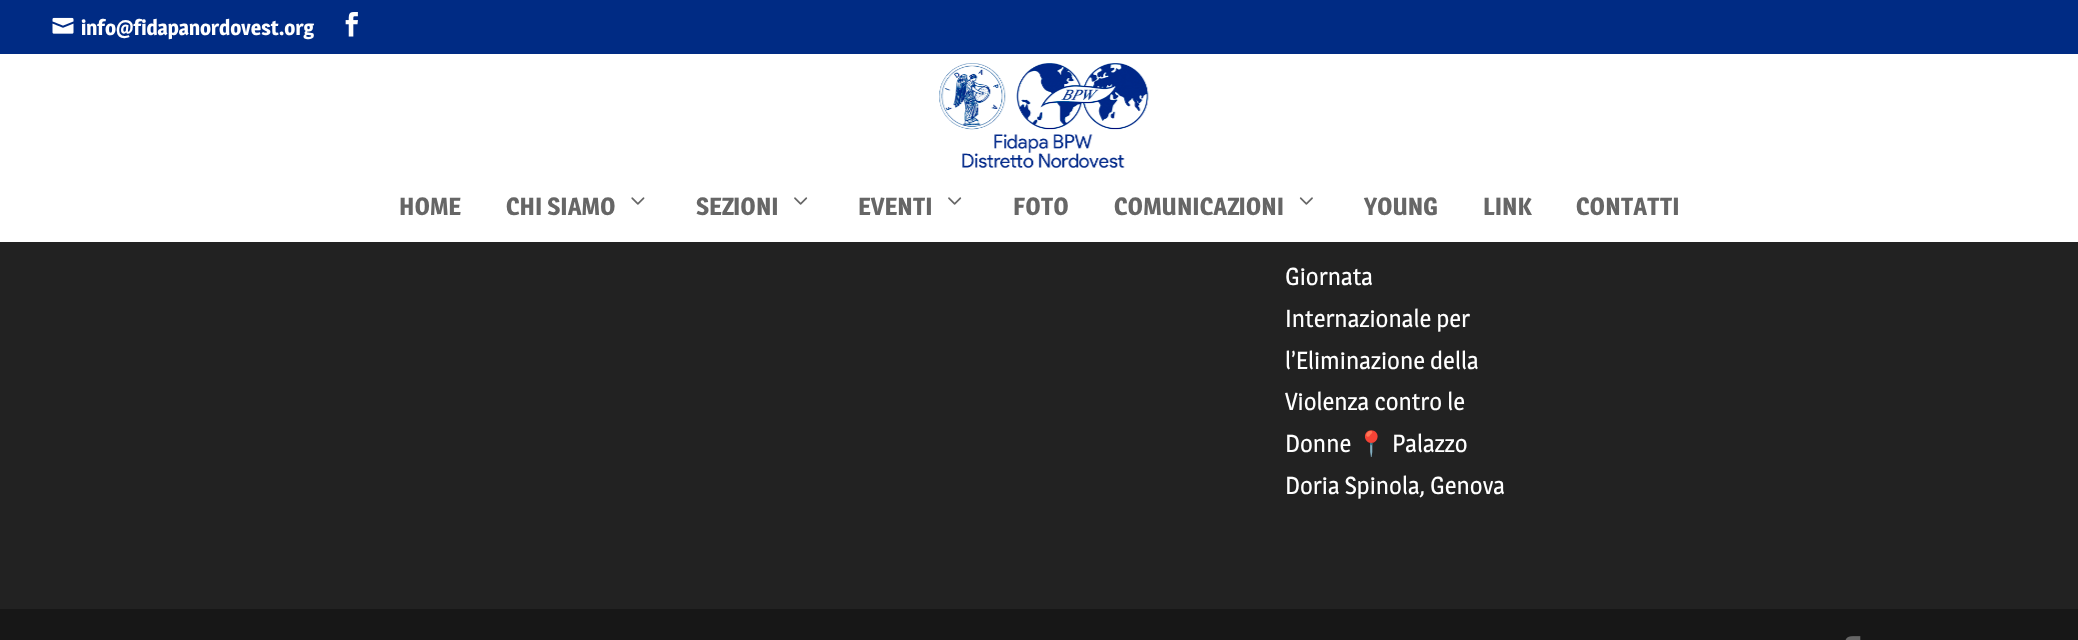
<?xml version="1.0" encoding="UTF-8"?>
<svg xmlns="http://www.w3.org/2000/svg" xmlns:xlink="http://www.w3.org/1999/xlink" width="2078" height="640">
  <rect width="100%" height="100%" fill="#222222" />
  <rect width="2078" height="54" fill="#002b84" />
  <image x="52" y="17" width="22" height="17" xlink:href="image1.png" />
  <image x="345" y="12" width="13" height="25" xlink:href="image2.png" />
  <rect y="54" width="2078" height="188" fill="#ffffff" />
  <image x="939" y="63" width="210" height="105" xlink:href="image3.png" />
  <image x="631" y="197" width="14" height="8" xlink:href="image4.png" />
  <image x="794" y="197" width="14" height="8" xlink:href="image5.png" />
  <image x="948" y="197" width="14" height="8" xlink:href="image5.png" />
  <image x="1299" y="197" width="14" height="8" xlink:href="image6.png" />
  <rect y="609" width="2078" height="31" fill="#171717" />
  <image x="1845" y="636" width="16" height="4" xlink:href="image7.png" />
  <text x="81" y="35" style="font-family: Magra; font-size: 21px; font-weight: bold; fill: #ffffff">info@fidapanordovest.org</text>
  <text x="399" y="215" style="font-family: Magra; font-size: 24.5px; font-weight: bold; fill: #666666">HOME</text>
  <text x="506" y="215" style="font-family: Magra; font-size: 24.5px; font-weight: bold; fill: #666666">CHI SIAMO</text>
  <text x="696" y="215" style="font-family: Magra; font-size: 24.5px; font-weight: bold; fill: #666666">SEZIONI</text>
  <text x="858" y="215" style="font-family: Magra; font-size: 24.5px; font-weight: bold; fill: #666666">EVENTI</text>
  <text x="1013" y="215" style="font-family: Magra; font-size: 24.5px; font-weight: bold; fill: #666666">FOTO</text>
  <text x="1114" y="215" style="font-family: Magra; font-size: 24.5px; font-weight: bold; fill: #666666">COMUNICAZIONI</text>
  <text x="1364" y="215" style="font-family: Magra; font-size: 24.5px; font-weight: bold; fill: #666666">YOUNG</text>
  <text x="1483" y="215" style="font-family: Magra; font-size: 24.5px; font-weight: bold; fill: #666666">LINK</text>
  <text x="1576" y="215" style="font-family: Magra; font-size: 24.5px; font-weight: bold; fill: #666666">CONTATTI</text>
  <text x="1285" y="285" style="font-family: Magra; font-size: 24.5px; fill: #ffffff">Giornata</text>
  <text x="1285" y="327" style="font-family: Magra; font-size: 24.5px; fill: #ffffff">Internazionale per</text>
  <text x="1285" y="369" style="font-family: Magra; font-size: 24.5px; fill: #ffffff">l’Eliminazione della</text>
  <text x="1285" y="410" style="font-family: Magra; font-size: 24.5px; fill: #ffffff">Violenza contro le</text>
  <text x="1285" y="452" style="font-family: Magra; font-size: 24.5px; fill: #ffffff">Donne</text>
  <text x="1356" y="452" style="font-family: Noto Color Emoji; font-size: 24.5px; fill: #ffffff">📍</text>
  <text x="1392" y="452" style="font-family: Magra; font-size: 24.5px; fill: #ffffff">Palazzo</text>
  <text x="1285" y="494" style="font-family: Magra; font-size: 24.5px; fill: #ffffff">Doria Spinola, Genova</text>
</svg>
